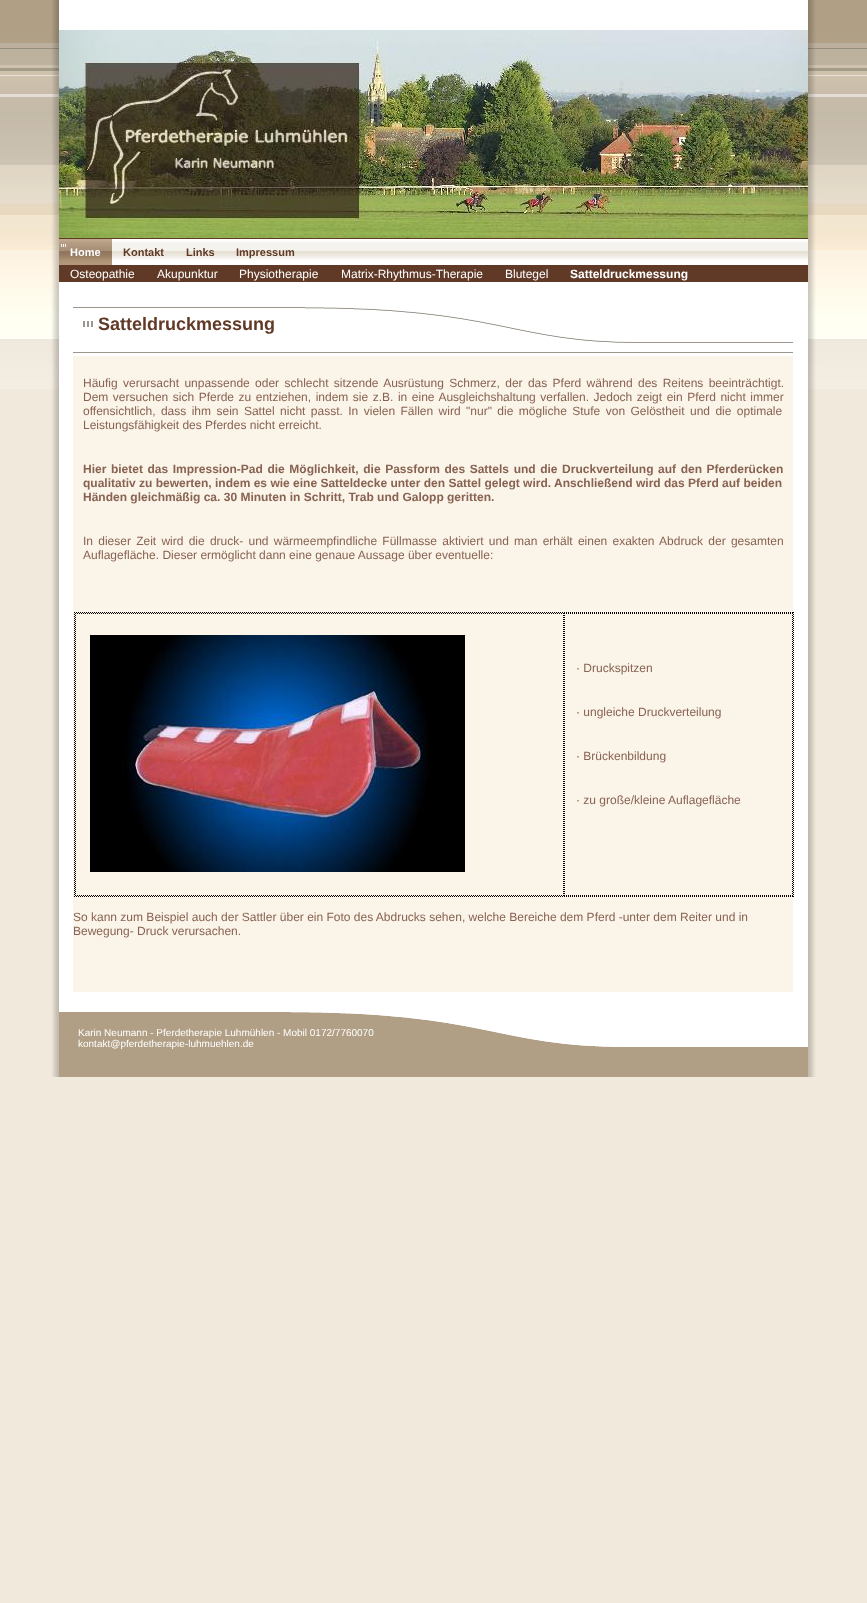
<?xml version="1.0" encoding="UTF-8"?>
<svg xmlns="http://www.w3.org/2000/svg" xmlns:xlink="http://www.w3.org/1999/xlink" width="867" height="1603">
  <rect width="100%" height="100%" fill="#f1e9db" />
  <image x="0" y="0" width="867" height="389" xlink:href="image1.png" />
  <image x="48" y="389" width="771" height="688" xlink:href="image2.png" />
  <image x="48" y="0" width="771" height="251" xlink:href="image3.png" />
  <image x="59" y="30" width="749" height="208" xlink:href="image4.png" />
  <image x="48" y="251" width="771" height="138" xlink:href="image7.png" />
  <image x="59" y="238" width="749" height="28" xlink:href="image5.png" />
  <image x="59" y="239" width="53" height="26" xlink:href="image6.png" />
  <rect x="59" y="266" width="749" height="16" fill="#613927" />
  <rect x="73" y="356" width="720" height="636" fill="#faf4e9" />
  <image x="73" y="292" width="720" height="64" xlink:href="image8.png" />
  <path d="M 74 612.5 h 720" fill="none" stroke="#000000" stroke-dasharray="1 1" />
  <path d="M 793.5 612 v 285" fill="none" stroke="#000000" stroke-dasharray="1 1" />
  <path d="M 74 896.5 h 720" fill="none" stroke="#000000" stroke-dasharray="1 1" />
  <path d="M 74.5 612 v 285" fill="none" stroke="#000000" stroke-dasharray="1 1" />
  <path d="M 75 613.5 h 489" fill="none" stroke="#000000" stroke-dasharray="1 1" />
  <path d="M 563.5 613 v 283" fill="none" stroke="#000000" stroke-dasharray="1 1" />
  <path d="M 75 895.5 h 489" fill="none" stroke="#000000" stroke-dasharray="1 1" />
  <path d="M 75.5 613 v 283" fill="none" stroke="#000000" stroke-dasharray="1 1" />
  <image x="90" y="635" width="375" height="237" xlink:href="image9.png" />
  <path d="M 564 613.5 h 229" fill="none" stroke="#000000" stroke-dasharray="1 1" />
  <path d="M 792.5 613 v 283" fill="none" stroke="#000000" stroke-dasharray="1 1" />
  <path d="M 564 895.5 h 229" fill="none" stroke="#000000" stroke-dasharray="1 1" />
  <path d="M 564.5 613 v 283" fill="none" stroke="#000000" stroke-dasharray="1 1" />
  <image x="59" y="1012" width="749" height="65" xlink:href="image10.png" />
  <text x="70" y="256" style="font-family: Liberation Sans; font-size: 11px; font-weight: bold; fill: #ffffff">Home</text>
  <text x="123" y="256" style="font-family: Liberation Sans; font-size: 11px; font-weight: bold; fill: #613927">Kontakt</text>
  <text x="186" y="256" style="font-family: Liberation Sans; font-size: 11px; font-weight: bold; fill: #613927">Links</text>
  <text x="236" y="256" style="font-family: Liberation Sans; font-size: 11px; font-weight: bold; fill: #613927">Impressum</text>
  <text x="70" y="278" style="font-family: Liberation Sans; font-size: 12px; fill: #ffffff">Osteopathie</text>
  <text x="157" y="278" style="font-family: Liberation Sans; font-size: 12px; fill: #ffffff">Akupunktur</text>
  <text x="239" y="278" style="font-family: Liberation Sans; font-size: 12px; fill: #ffffff">Physiotherapie</text>
  <text x="341" y="278" style="font-family: Liberation Sans; font-size: 12px; fill: #ffffff">Matrix-Rhythmus-Therapie</text>
  <text x="505" y="278" style="font-family: Liberation Sans; font-size: 12px; fill: #ffffff">Blutegel</text>
  <text x="570" y="278" style="font-family: Liberation Sans; font-size: 12px; font-weight: bold; fill: #ffffff">Satteldruckmessung</text>
  <text x="98" y="330" style="font-family: Liberation Sans; font-size: 18px; font-weight: bold; fill: #613927">Satteldruckmessung</text>
  <text x="83" y="387" word-spacing="2" style="font-family: Liberation Sans; font-size: 12px; fill: #896251">Häufig verursacht unpassende oder schlecht sitzende Ausrüstung Schmerz, der das Pferd während des Reitens beeinträchtigt.</text>
  <text x="83" y="401" word-spacing="1.2" style="font-family: Liberation Sans; font-size: 12px; fill: #896251">Dem versuchen sich Pferde zu entziehen, indem sie z.B. in eine Ausgleichshaltung verfallen. Jedoch zeigt ein Pferd nicht immer</text>
  <text x="83" y="415" word-spacing="2.1" style="font-family: Liberation Sans; font-size: 12px; fill: #896251">offensichtlich, dass ihm sein Sattel nicht passt. In vielen Fällen wird "nur" die mögliche Stufe von Gelöstheit und die optimale</text>
  <text x="83" y="429" style="font-family: Liberation Sans; font-size: 12px; fill: #896251">Leistungsfähigkeit des Pferdes nicht erreicht.</text>
  <text x="83" y="473" word-spacing="1.25" style="font-family: Liberation Sans; font-size: 12px; font-weight: bold; fill: #896251">Hier bietet das Impression-Pad die Möglichkeit, die Passform des Sattels und die Druckverteilung auf den Pferderücken</text>
  <text x="83" y="487" style="font-family: Liberation Sans; font-size: 12px; font-weight: bold; fill: #896251">qualitativ zu bewerten, indem es wie eine Satteldecke unter den Sattel gelegt wird. Anschließend wird das Pferd auf beiden</text>
  <text x="83" y="501" style="font-family: Liberation Sans; font-size: 12px; font-weight: bold; fill: #896251">Händen gleichmäßig ca. 30 Minuten in Schritt, Trab und Galopp geritten.</text>
  <text x="83" y="545" word-spacing="1.9" style="font-family: Liberation Sans; font-size: 12px; fill: #896251">In dieser Zeit wird die druck- und wärmeempfindliche Füllmasse aktiviert und man erhält einen exakten Abdruck der gesamten</text>
  <text x="83" y="559" style="font-family: Liberation Sans; font-size: 12px; fill: #896251">Auflagefläche. Dieser ermöglicht dann eine genaue Aussage über eventuelle:</text>
  <text x="576" y="672" style="font-family: Liberation Sans; font-size: 12px; fill: #896251">· Druckspitzen</text>
  <text x="576" y="716" style="font-family: Liberation Sans; font-size: 12px; fill: #896251">· ungleiche Druckverteilung</text>
  <text x="576" y="760" style="font-family: Liberation Sans; font-size: 12px; fill: #896251">· Brückenbildung</text>
  <text x="576" y="804" style="font-family: Liberation Sans; font-size: 12px; fill: #896251">· zu große/kleine Auflagefläche</text>
  <text x="73" y="921" style="font-family: Liberation Sans; font-size: 12px; fill: #896251">So kann zum Beispiel auch der Sattler über ein Foto des Abdrucks sehen, welche Bereiche dem Pferd -unter dem Reiter und in</text>
  <text x="73" y="935" style="font-family: Liberation Sans; font-size: 12px; fill: #896251">Bewegung- Druck verursachen.</text>
  <text x="78" y="1036" style="font-family: Liberation Sans; font-size: 10px; fill: #ffffff">Karin Neumann - Pferdetherapie Luhmühlen - Mobil 0172/7760070</text>
  <text x="78" y="1047" style="font-family: Liberation Sans; font-size: 10px; fill: #ffffff">kontakt@pferdetherapie-luhmuehlen.de</text>
</svg>
